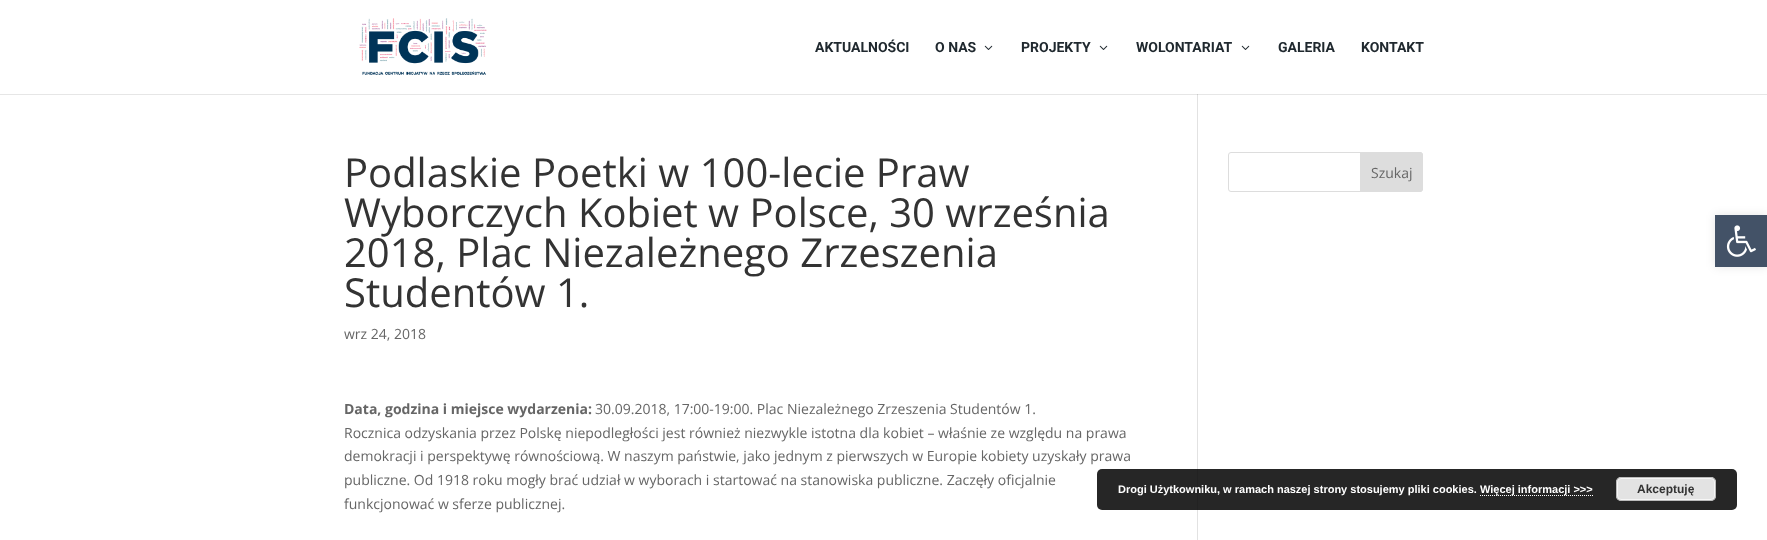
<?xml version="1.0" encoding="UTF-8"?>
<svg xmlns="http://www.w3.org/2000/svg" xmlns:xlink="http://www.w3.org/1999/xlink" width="1767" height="540">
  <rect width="100%" height="100%" fill="#ffffff" />
  <rect y="94" width="1767" height="1" fill="#e6e6e6" />
  <image x="359" y="18" width="128" height="57" xlink:href="image1.png" />
  <image x="984" y="45" width="9" height="5" xlink:href="image2.png" />
  <image x="1099" y="45" width="9" height="5" xlink:href="image2.png" />
  <image x="1241" y="45" width="9" height="5" xlink:href="image2.png" />
  <rect x="1197" y="94" width="1" height="446" fill="#e2e2e2" />
  <rect x="1197" y="94" width="1" height="1" fill="#cbcbcb" />
  <rect x="1228.5" y="152.5" width="194" height="39" rx="2.5" fill="none" stroke="#dddddd" />
  <path d="M 1360.5 152.5 h 59.5 c 1.5 0 2.5 1 2.5 2.5 v 34 c 0 1.5 -1 2.5 -2.5 2.5 h -59.5 z" fill="#dddddd" stroke="#dddddd" />
  <rect x="1715" y="215" width="52" height="52" fill="#000000" fill-opacity="0.1" filter="blur(5px)" />
  <rect x="1715" y="215" width="52" height="52" fill="#435267" />
  <image x="1726" y="225" width="30" height="32" xlink:href="image3.png" />
  <rect x="1097" y="469" width="640" height="41" rx="5" fill="#000000" fill-opacity="0.85" />
  <path d="M 1480 495.5 h 113" fill="none" stroke="#ffffff" stroke-dasharray="1 1" />
  <rect x="1616" y="477" width="100" height="24" rx="5" fill="#e3e3e3" />
  <rect x="1617.5" y="478.5" width="97" height="21" rx="3.5" fill="none" stroke="#f6f6f6" />
  <rect x="1616.5" y="477.5" width="99" height="23" rx="4.5" fill="none" stroke="#bbbbbb" />
  <text x="815" y="52" style="font-family: Roboto; font-size: 14px; font-weight: bold; fill: #20292f">AKTUALNOŚCI</text>
  <text x="935" y="52" style="font-family: Roboto; font-size: 14px; font-weight: bold; fill: #20292f">O NAS</text>
  <text x="1021" y="52" style="font-family: Roboto; font-size: 14px; font-weight: bold; fill: #20292f">PROJEKTY</text>
  <text x="1136" y="52" style="font-family: Roboto; font-size: 14px; font-weight: bold; fill: #20292f">WOLONTARIAT</text>
  <text x="1278" y="52" style="font-family: Roboto; font-size: 14px; font-weight: bold; fill: #20292f">GALERIA</text>
  <text x="1361" y="52" style="font-family: Roboto; font-size: 14px; font-weight: bold; fill: #20292f">KONTAKT</text>
  <text x="344" y="187" style="font-family: Open Sans; font-size: 40px; fill: #333333">Podlaskie Poetki w 100-lecie Praw</text>
  <text x="344" y="227" style="font-family: Open Sans; font-size: 40px; fill: #333333">Wyborczych Kobiet w Polsce, 30 września</text>
  <text x="344" y="267" style="font-family: Open Sans; font-size: 40px; fill: #333333">2018, Plac Niezależnego Zrzeszenia</text>
  <text x="344" y="307" style="font-family: Open Sans; font-size: 40px; fill: #333333">Studentów 1.</text>
  <text x="344" y="339" style="font-family: Open Sans; font-size: 14px; fill: #666666">wrz 24, 2018</text>
  <text x="344" y="414" style="font-family: Open Sans; font-size: 14px; font-weight: bold; fill: #666666">Data, godzina i miejsce wydarzenia:</text>
  <text x="595" y="414" style="font-family: Open Sans; font-size: 14px; fill: #666666">30.09.2018, 17:00-19:00. Plac Niezależnego Zrzeszenia Studentów 1.</text>
  <text x="344" y="438" style="font-family: Open Sans; font-size: 14px; fill: #666666">Rocznica odzyskania przez Polskę niepodległości jest również niezwykle istotna dla kobiet – właśnie ze względu na prawa</text>
  <text x="344" y="461" style="font-family: Open Sans; font-size: 14px; fill: #666666">demokracji i perspektywę równościową. W naszym państwie, jako jednym z pierwszych w Europie kobiety uzyskały prawa</text>
  <text x="344" y="485" style="font-family: Open Sans; font-size: 14px; fill: #666666">publiczne. Od 1918 roku mogły brać udział w wyborach i startować na stanowiska publiczne. Zaczęły oficjalnie</text>
  <text x="344" y="509" style="font-family: Open Sans; font-size: 14px; fill: #666666">funkcjonować w sferze publicznej.</text>
  <text x="1371" y="178" style="font-family: Open Sans; font-size: 14px; fill: #666666">Szukaj</text>
  <text x="1118" y="493" style="font-family: Liberation Sans; font-size: 11px; font-weight: bold; fill: #ffffff">Drogi Użytkowniku, w ramach naszej strony stosujemy pliki cookies.</text>
  <text x="1480" y="493" style="font-family: Liberation Sans; font-size: 11px; font-weight: bold; fill: #ffffff">Więcej informacji &gt;&gt;&gt;</text>
  <text x="1637" y="493" style="font-family: Liberation Sans; font-size: 12px; font-weight: bold; fill: #333333">Akceptuję</text>
</svg>
